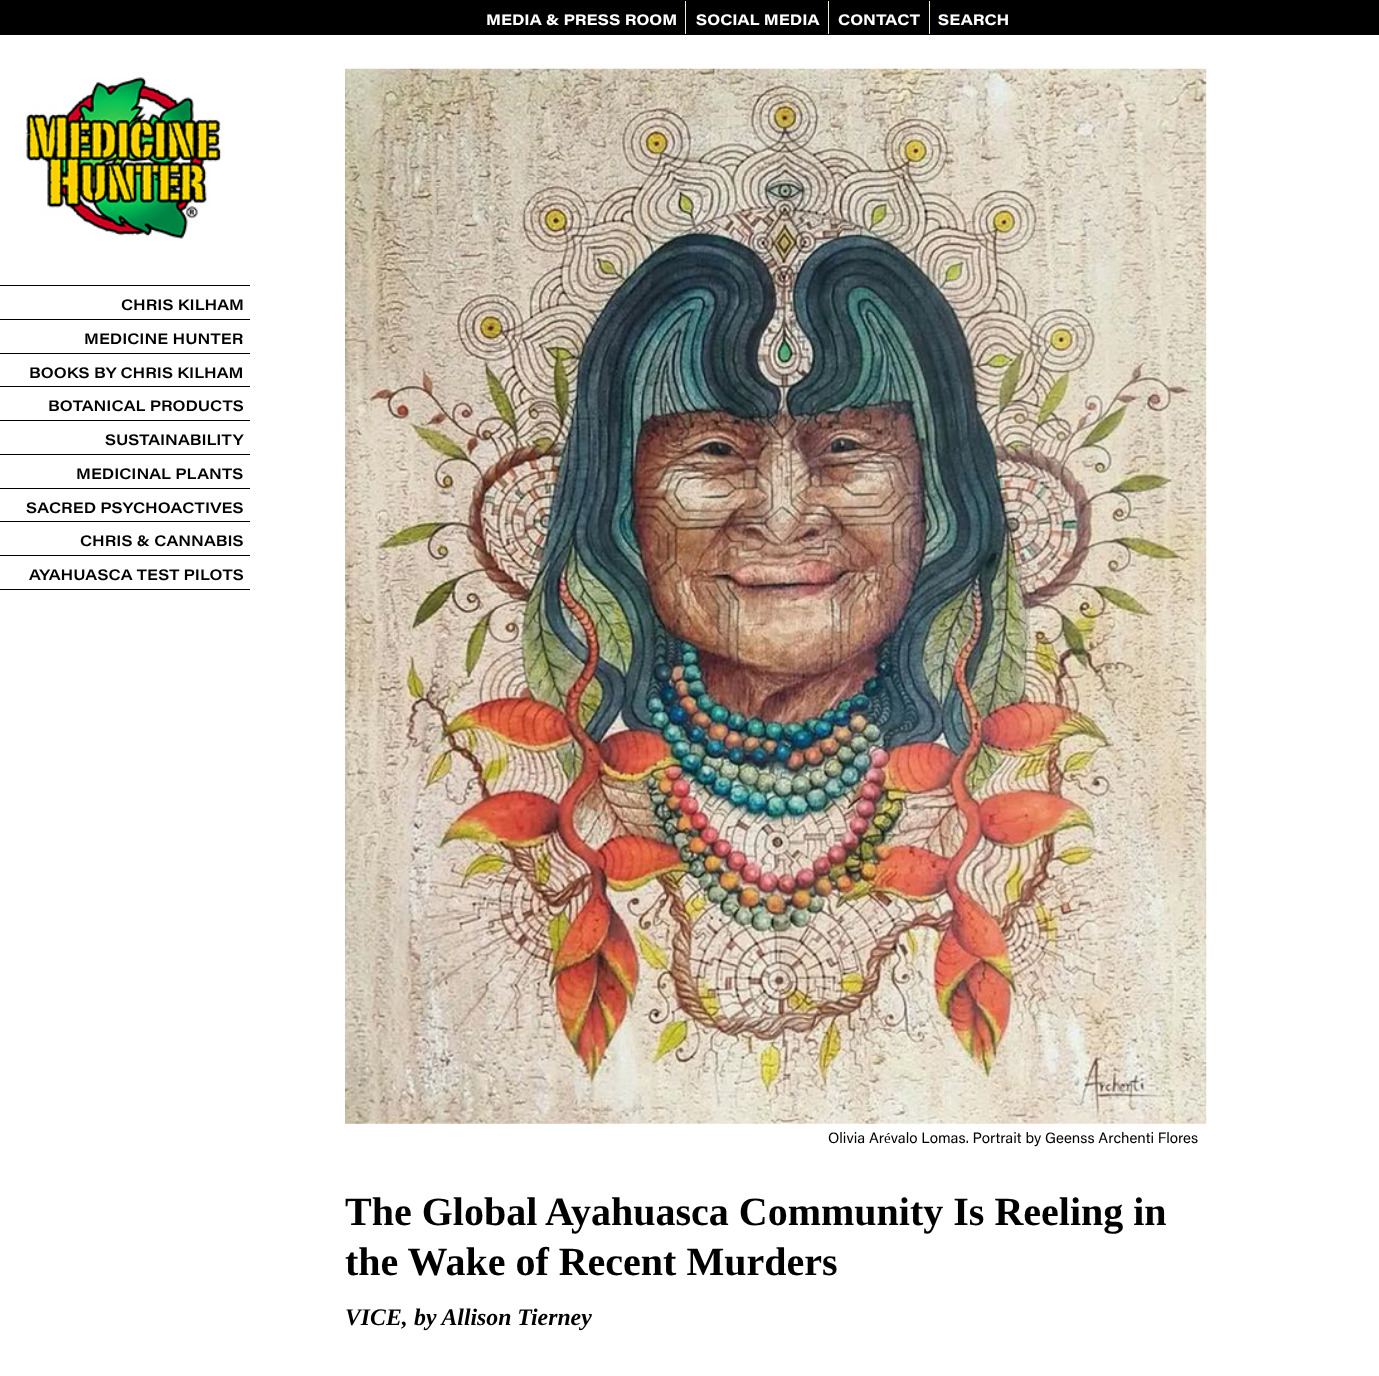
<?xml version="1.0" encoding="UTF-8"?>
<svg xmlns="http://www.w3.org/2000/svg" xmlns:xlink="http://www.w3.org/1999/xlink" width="1379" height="1376">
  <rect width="100%" height="100%" fill="#ffffff" />
  <rect width="1379" height="35" fill="#000000" />
  <rect x="685" y="1" width="1" height="33" fill="#f2eed5" />
  <rect x="828" y="1" width="1" height="33" fill="#f2eed5" />
  <rect x="929" y="1" width="1" height="33" fill="#f2eed5" />
  <image x="26" y="77" width="196" height="162" xlink:href="image1.png" />
  <rect y="285" width="250" height="1" fill="#000000" />
  <rect y="319" width="250" height="1" fill="#000000" />
  <rect y="353" width="250" height="1" fill="#000000" />
  <rect y="386" width="250" height="1" fill="#000000" />
  <rect y="420" width="250" height="1" fill="#000000" />
  <rect y="454" width="250" height="1" fill="#000000" />
  <rect y="488" width="250" height="1" fill="#000000" />
  <rect y="521" width="250" height="1" fill="#000000" />
  <rect y="555" width="250" height="1" fill="#000000" />
  <rect y="589" width="250" height="1" fill="#000000" />
  <image x="345" y="68" width="862" height="1056" xlink:href="image2.png" />
  <text x="486" y="25" style="font-family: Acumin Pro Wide; font-size: 15px; font-weight: bold; fill: #ffffff">MEDIA &amp; PRESS ROOM</text>
  <text x="696" y="25" style="font-family: Acumin Pro Wide; font-size: 15px; font-weight: bold; fill: #ffffff">SOCIAL MEDIA</text>
  <text x="838" y="25" style="font-family: Acumin Pro Wide; font-size: 15px; font-weight: bold; fill: #ffffff">CONTACT</text>
  <text x="938" y="25" style="font-family: Acumin Pro Wide; font-size: 15px; font-weight: bold; fill: #ffffff">SEARCH</text>
  <text x="121" y="310" style="font-family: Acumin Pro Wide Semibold; font-size: 15px; font-weight: 600; fill: #000000">CHRIS KILHAM</text>
  <text x="84" y="344" style="font-family: Acumin Pro Wide Semibold; font-size: 15px; font-weight: 600; fill: #000000">MEDICINE HUNTER</text>
  <text x="29" y="378" style="font-family: Acumin Pro Wide Semibold; font-size: 15px; font-weight: 600; fill: #000000">BOOKS BY CHRIS KILHAM</text>
  <text x="48" y="411" style="font-family: Acumin Pro Wide Semibold; font-size: 15px; font-weight: 600; fill: #000000">BOTANICAL PRODUCTS</text>
  <text x="105" y="445" style="font-family: Acumin Pro Wide Semibold; font-size: 15px; font-weight: 600; fill: #000000">SUSTAINABILITY</text>
  <text x="76" y="479" style="font-family: Acumin Pro Wide Semibold; font-size: 15px; font-weight: 600; fill: #000000">MEDICINAL PLANTS</text>
  <text x="26" y="513" style="font-family: Acumin Pro Wide Semibold; font-size: 15px; font-weight: 600; fill: #000000">SACRED PSYCHOACTIVES</text>
  <text x="80" y="546" style="font-family: Acumin Pro Wide Semibold; font-size: 15px; font-weight: 600; fill: #000000">CHRIS &amp; CANNABIS</text>
  <text x="29" y="580" style="font-family: Acumin Pro Wide Semibold; font-size: 15px; font-weight: 600; fill: #000000">AYAHUASCA TEST PILOTS</text>
  <text x="828" y="1143" style="font-family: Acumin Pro; font-size: 15px; fill: #000000">Olivia Arévalo Lomas. Portrait by Geenss Archenti Flores</text>
  <text x="345" y="1225" style="font-family: Liberation Serif; font-size: 40px; font-weight: bold; fill: #000000">The Global Ayahuasca Community Is Reeling in</text>
  <text x="345" y="1275" style="font-family: Liberation Serif; font-size: 40px; font-weight: bold; fill: #000000">the Wake of Recent Murders</text>
  <text x="345" y="1325" style="font-family: Liberation Serif; font-size: 23.75px; font-weight: bold; font-style: italic; fill: #000000">VICE,</text>
  <text x="414" y="1325" style="font-family: Liberation Serif; font-size: 23.75px; font-weight: bold; font-style: italic; fill: #000000">by Allison Tierney</text>
</svg>
